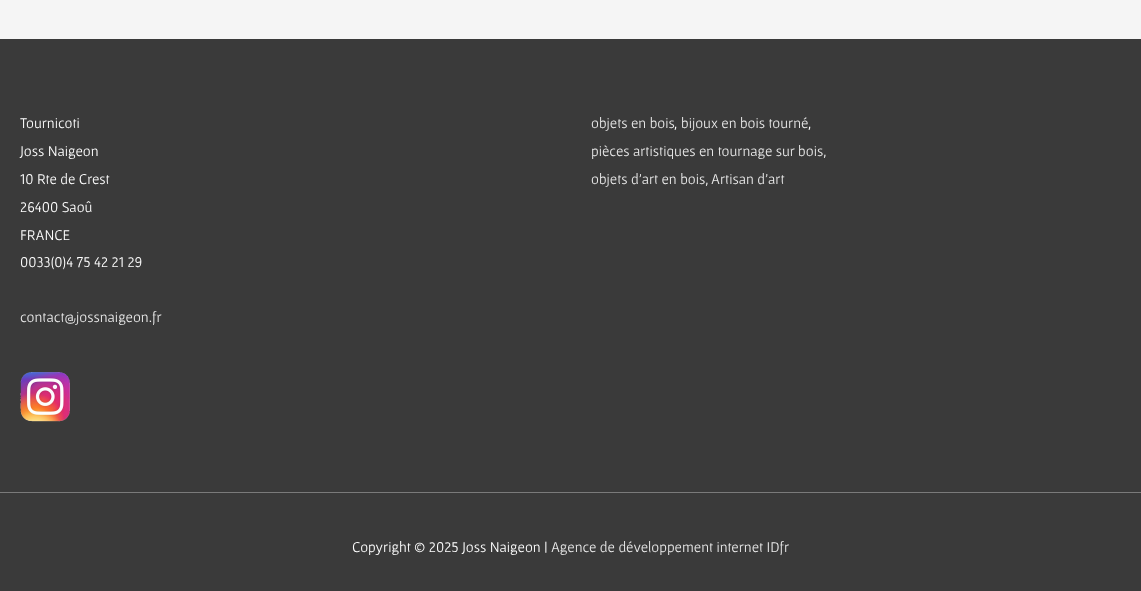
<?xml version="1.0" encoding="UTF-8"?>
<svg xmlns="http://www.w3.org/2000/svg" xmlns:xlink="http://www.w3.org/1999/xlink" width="1141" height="591">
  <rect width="100%" height="100%" fill="#f5f5f5" />
  <rect y="39" width="1141" height="453" fill="#3a3a3a" />
  <image x="20" y="372" width="50" height="50" xlink:href="image1.png" />
  <rect y="492" width="1141" height="1" fill="#7a7a7a" />
  <rect y="493" width="1141" height="98" fill="#3a3a3a" />
  <text x="20" y="128" style="font-family: Gafata; font-size: 15px; fill: #ffffff">Tournicoti</text>
  <text x="20" y="156" style="font-family: Gafata; font-size: 15px; fill: #ffffff">Joss Naigeon</text>
  <text x="20" y="184" style="font-family: Gafata; font-size: 15px; fill: #ffffff">10 Rte de Crest</text>
  <text x="20" y="212" style="font-family: Gafata; font-size: 15px; fill: #ffffff">26400 Saoû</text>
  <text x="20" y="240" style="font-family: Gafata; font-size: 15px; fill: #ffffff">FRANCE</text>
  <text x="20" y="267" style="font-family: Gafata; font-size: 15px; fill: #ffffff">0033(0)4 75 42 21 29</text>
  <text x="20" y="322" style="font-family: Gafata; font-size: 15px; fill: #eaeaea">contact@jossnaigeon.fr</text>
  <text x="591" y="128" style="font-family: Gafata; font-size: 15px; fill: #eaeaea">objets en bois</text>
  <text x="674" y="128" style="font-family: Gafata; font-size: 15px; fill: #ffffff">,</text>
  <text x="681" y="128" style="font-family: Gafata; font-size: 15px; fill: #eaeaea">bijoux en bois tourné</text>
  <text x="808" y="128" style="font-family: Gafata; font-size: 15px; fill: #ffffff">,</text>
  <text x="591" y="156" style="font-family: Gafata; font-size: 15px; fill: #eaeaea">pièces artistiques en tournage sur bois,</text>
  <text x="591" y="184" style="font-family: Gafata; font-size: 15px; fill: #eaeaea">objets d’art en bois,</text>
  <text x="711" y="184" style="font-family: Gafata; font-size: 15px; fill: #eaeaea">Artisan d’art</text>
  <text x="352" y="552" style="font-family: Gafata; font-size: 15px; fill: #ffffff">Copyright © 2025 Joss Naigeon |</text>
  <text x="551" y="552" style="font-family: Gafata; font-size: 15px; fill: #eaeaea">Agence de développement internet IDfr</text>
</svg>
